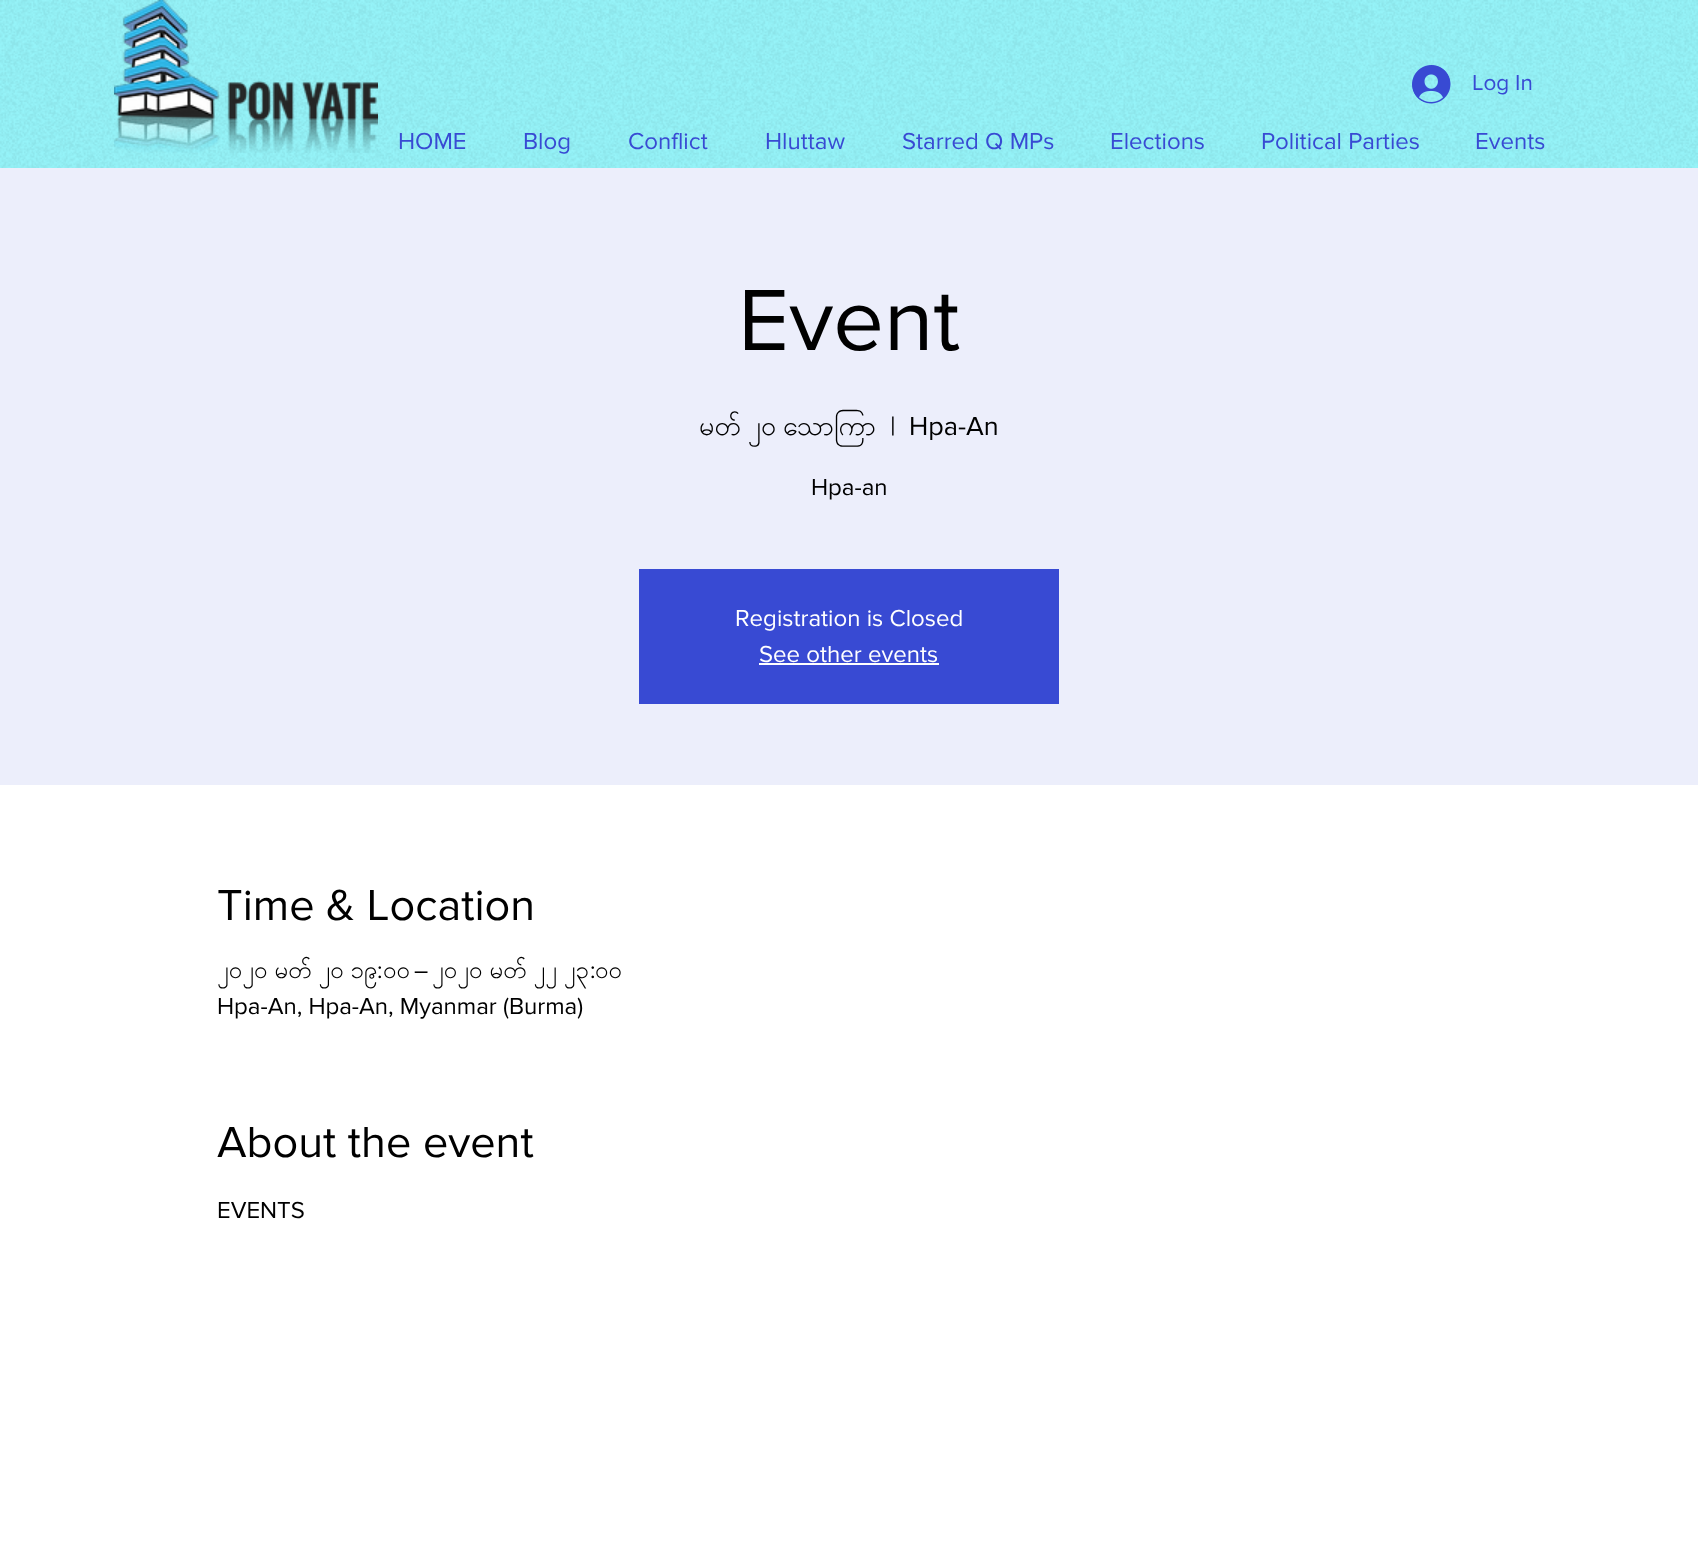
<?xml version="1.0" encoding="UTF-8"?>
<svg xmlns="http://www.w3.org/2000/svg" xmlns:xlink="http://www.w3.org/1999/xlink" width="1698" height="1557">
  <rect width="100%" height="100%" fill="#95f4f9" />
  <image x="0" y="0" width="1698" height="168" xlink:href="image1.png" />
  <image x="114" y="0" width="264" height="153" xlink:href="image2.png" />
  <image x="1412" y="65" width="39" height="39" xlink:href="image3.png" />
  <rect y="168" width="1698" height="617" fill="#eceefb" />
  <rect x="639" y="569" width="420" height="135" fill="#384ad3" />
  <rect x="759" y="663" width="180" height="2" fill="#ffffff" />
  <rect y="785" width="1698" height="772" fill="#ffffff" />
  <text x="1472" y="90" style="font-family: 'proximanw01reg'; font-size: 22.5px; fill: #384ad3">Log In</text>
  <text x="398" y="149" style="font-family: 'proximanw01reg'; font-size: 24px; fill: #384ad3">HOME</text>
  <text x="523" y="149" style="font-family: 'proximanw01reg'; font-size: 24px; fill: #384ad3">Blog</text>
  <text x="628" y="149" style="font-family: 'proximanw01reg'; font-size: 24px; fill: #384ad3">Conflict</text>
  <text x="765" y="149" style="font-family: 'proximanw01reg'; font-size: 24px; fill: #384ad3">Hluttaw</text>
  <text x="902" y="149" style="font-family: 'proximanw01reg'; font-size: 24px; fill: #384ad3">Starred Q MPs</text>
  <text x="1110" y="149" style="font-family: 'proximanw01reg'; font-size: 24px; fill: #384ad3">Elections</text>
  <text x="1261" y="149" style="font-family: 'proximanw01reg'; font-size: 24px; fill: #384ad3">Political Parties</text>
  <text x="1475" y="149" style="font-family: 'proximanw01reg'; font-size: 24px; fill: #384ad3">Events</text>
  <text x="738" y="350" style="font-family: 'proximanw01reg'; font-size: 90px; fill: #000000">Event</text>
  <text x="699" y="435" word-spacing="-3" style="font-family: Padauk; font-size: 27px; fill: #000000">မတ် ၂၀ သောကြာ</text>
  <text x="890" y="435" style="font-family: 'proximanw01reg'; font-size: 27px; fill: #000000">|</text>
  <text x="909" y="435" style="font-family: 'proximanw01reg'; font-size: 27px; fill: #000000">Hpa-An</text>
  <text x="811" y="495" style="font-family: 'proximanw01reg'; font-size: 24px; fill: #000000">Hpa-an</text>
  <text x="735" y="626" style="font-family: 'proximanw01reg'; font-size: 24px; fill: #ffffff">Registration is Closed</text>
  <text x="759" y="662" style="font-family: 'proximanw01reg'; font-size: 24px; fill: #ffffff">See other events</text>
  <text x="217" y="920" style="font-family: 'proximanw01reg'; font-size: 45px; fill: #000000">Time &amp; Location</text>
  <text x="217" y="978" word-spacing="-2" style="font-family: Padauk; font-size: 24px; fill: #000000">၂၀၂၀ မတ် ၂၀ ၁၉</text>
  <text x="377" y="978" style="font-family: 'proximanw01reg'; font-size: 24px; fill: #000000">:</text>
  <text x="383" y="978" style="font-family: Padauk; font-size: 24px; fill: #000000">၀၀</text>
  <text x="414" y="978" style="font-family: 'proximanw01reg'; font-size: 24px; fill: #000000">–</text>
  <text x="432" y="978" word-spacing="-2" style="font-family: Padauk; font-size: 24px; fill: #000000">၂၀၂၀ မတ် ၂၂ ၂၃</text>
  <text x="590" y="978" style="font-family: 'proximanw01reg'; font-size: 24px; fill: #000000">:</text>
  <text x="595" y="978" style="font-family: Padauk; font-size: 24px; fill: #000000">၀၀</text>
  <text x="217" y="1014" style="font-family: 'proximanw01reg'; font-size: 24px; fill: #000000">Hpa-An, Hpa-An, Myanmar (Burma)</text>
  <text x="217" y="1157" style="font-family: 'proximanw01reg'; font-size: 45px; fill: #000000">About the event</text>
  <text x="217" y="1218" style="font-family: 'proximanw01reg'; font-size: 24px; fill: #000000">EVENTS</text>
</svg>
